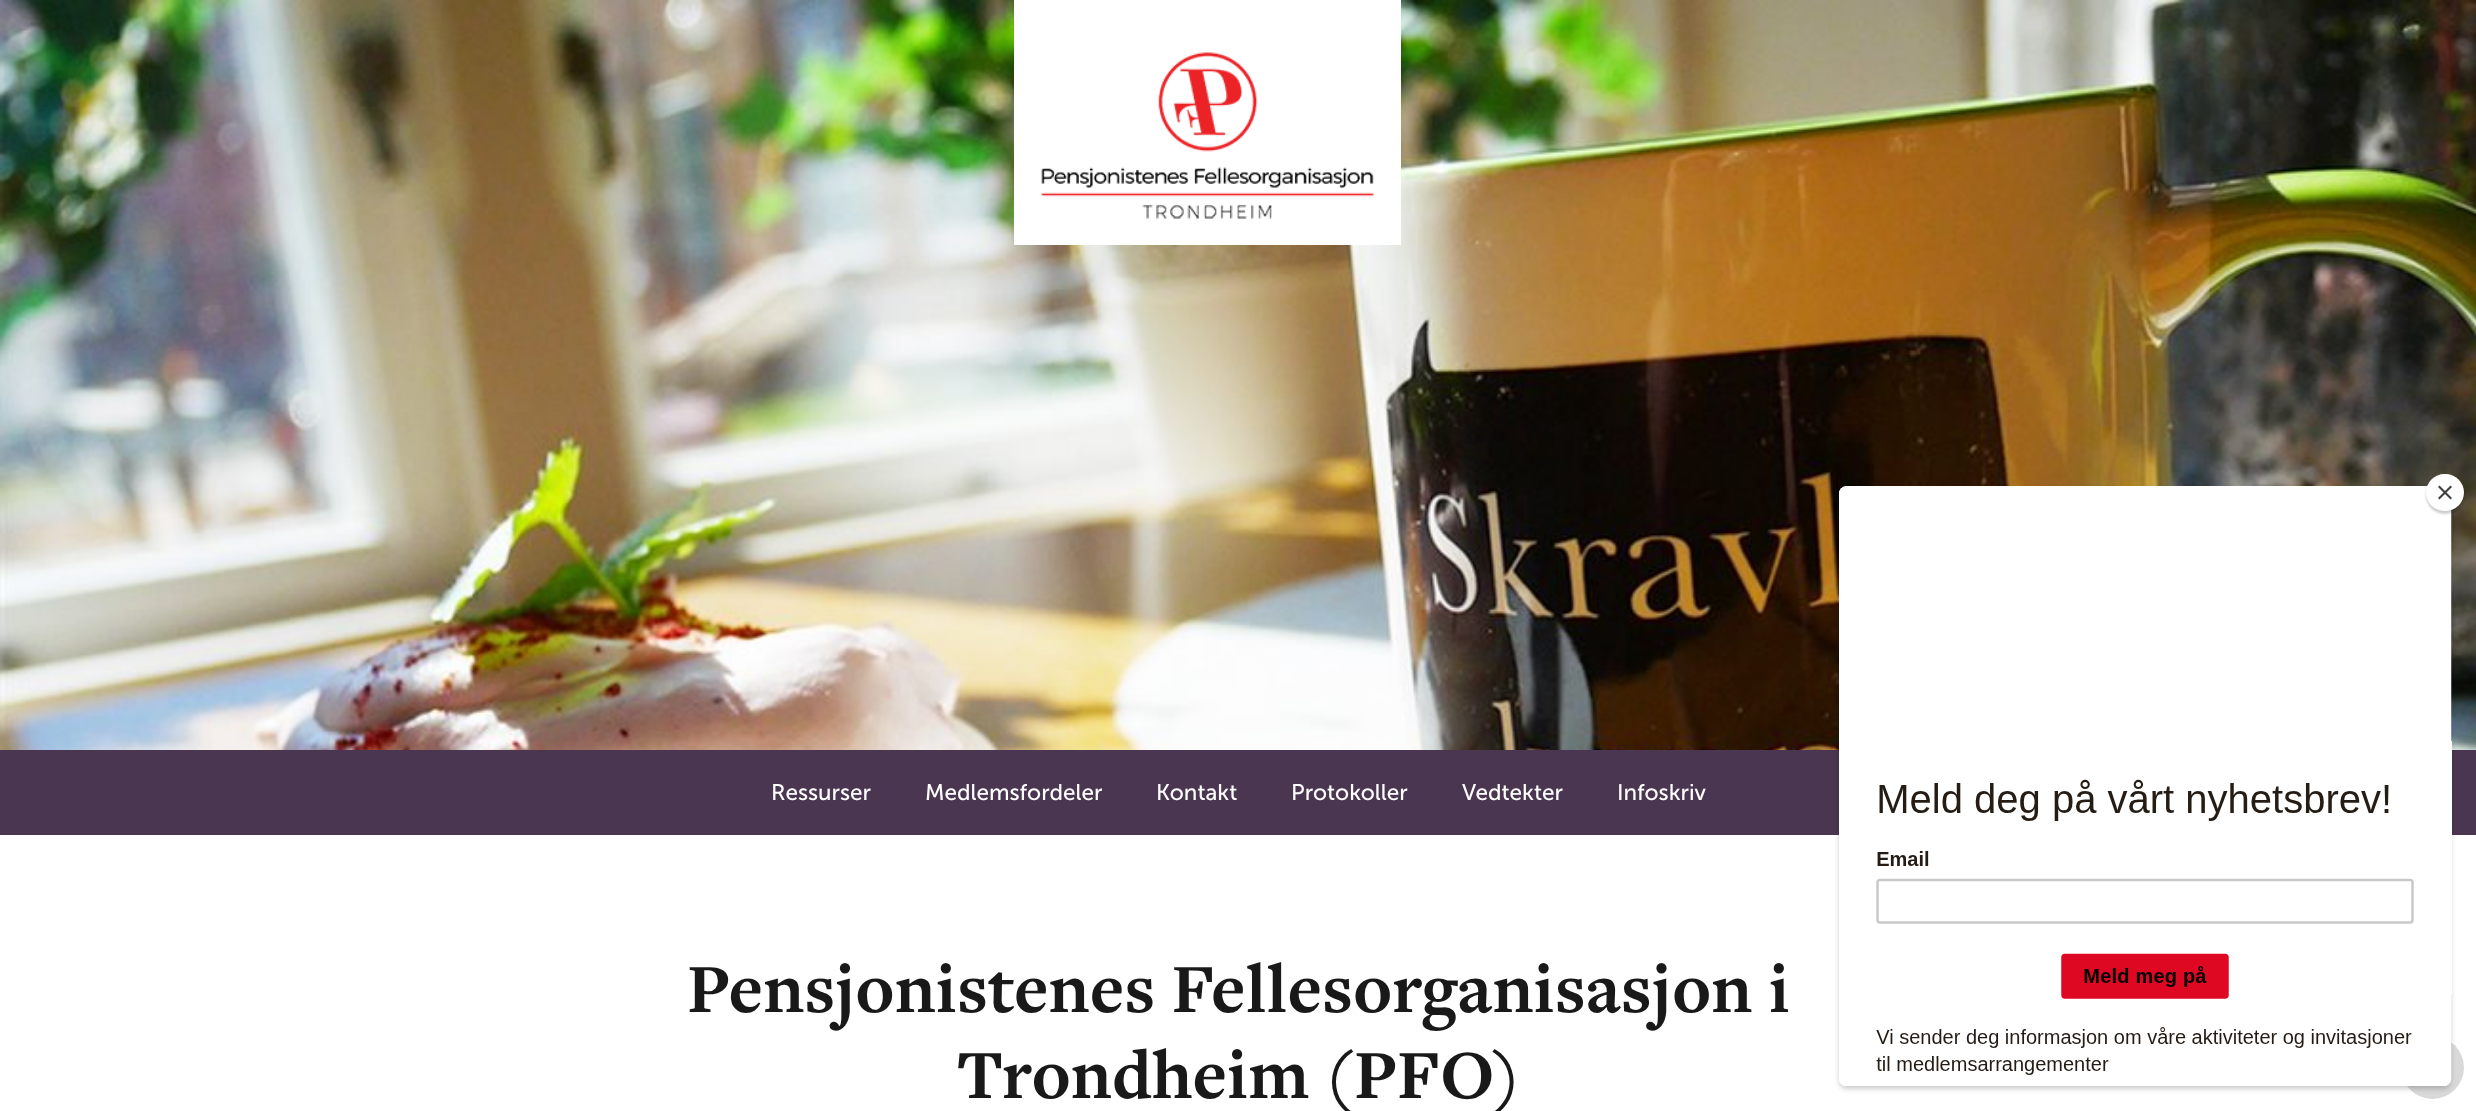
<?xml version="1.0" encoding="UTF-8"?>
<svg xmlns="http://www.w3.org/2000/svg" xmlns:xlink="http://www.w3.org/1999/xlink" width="2476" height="1111">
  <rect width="100%" height="100%" fill="#ffffff" />
  <image x="0" y="0" width="2476" height="750" xlink:href="image1.png" />
  <rect x="1014" width="387" height="245" fill="#ffffff" />
  <image x="1041" y="52" width="333" height="167" xlink:href="image2.png" />
  <rect y="750" width="2476" height="85" fill="#4a3651" />
  <circle cx="2432.5" cy="1067.5" r="31.5" fill="#d9d9d9" />
  <rect x="1839" y="489" width="612" height="600" rx="8" fill="#000000" fill-opacity="0.2" filter="blur(2.5px)" />
  <rect x="1839" y="486" width="612" height="600" rx="8" fill="#ffffff" />
  <image x="1839" y="486" width="613" height="600" xlink:href="image3.png" />
  <rect x="2426" y="476" width="38" height="38" rx="19" fill="#000000" fill-opacity="0.2" filter="blur(1px)" />
  <rect x="2426" y="474" width="38" height="37" rx="18.5" fill="#ffffff" />
  <path d="M 2450.5 485.5 l 1.5 1.5 l -12.5 12.5 l -1.5 -1.5 z" fill="#414141" />
  <path d="M 2438 487 l 1.5 -1.5 l 12.5 12.5 l -1.5 1.5 z" fill="#414141" />
  <text x="771" y="800" style="font-family: Museo Sans; font-size: 22.5px; fill: #ffffff">Ressurser</text>
  <text x="925" y="800" style="font-family: Museo Sans; font-size: 22.5px; fill: #ffffff">Medlemsfordeler</text>
  <text x="1156" y="800" style="font-family: Museo Sans; font-size: 22.5px; fill: #ffffff">Kontakt</text>
  <text x="1291" y="800" style="font-family: Museo Sans; font-size: 22.5px; fill: #ffffff">Protokoller</text>
  <text x="1462" y="800" style="font-family: Museo Sans; font-size: 22.5px; fill: #ffffff">Vedtekter</text>
  <text x="1617" y="800" style="font-family: Museo Sans; font-size: 22.5px; fill: #ffffff">Infoskriv</text>
  <text x="687" y="1012" style="font-family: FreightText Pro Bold; font-size: 71.7px; font-weight: bold; fill: #191919">Pensjonistenes Fellesorganisasjon i</text>
  <text x="957" y="1098" style="font-family: FreightText Pro Bold; font-size: 71.7px; font-weight: bold; fill: #191919">Trondheim (PFO)</text>
</svg>
